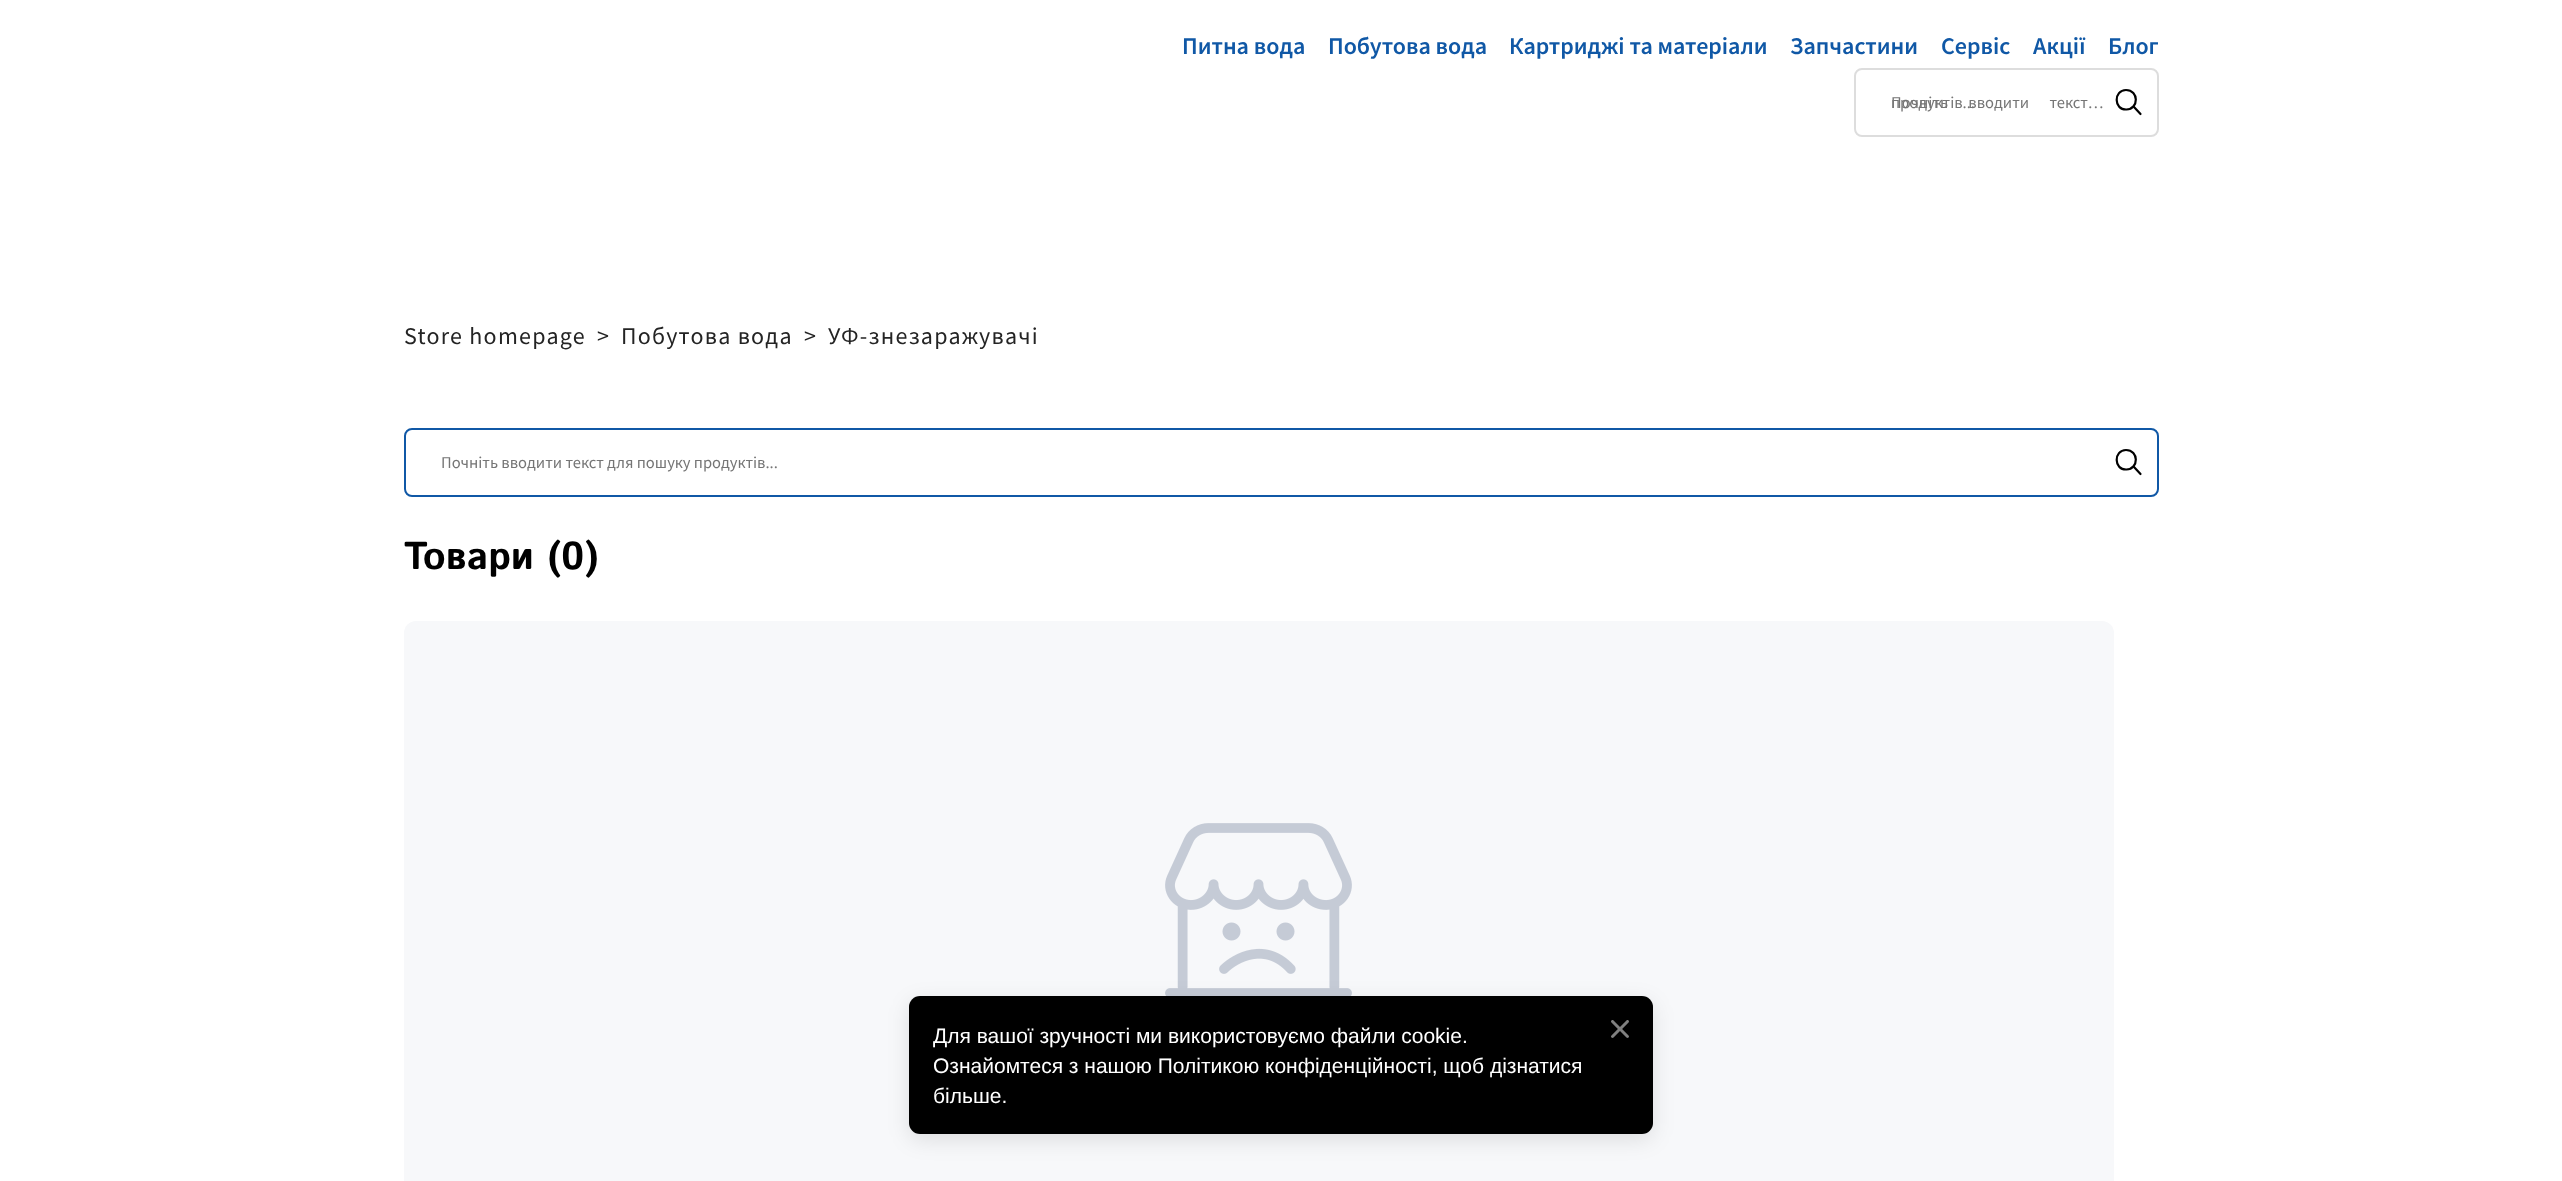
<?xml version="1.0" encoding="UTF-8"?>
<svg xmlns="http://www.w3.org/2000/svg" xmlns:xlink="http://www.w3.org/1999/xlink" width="2562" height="1181">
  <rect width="100%" height="100%" fill="#ffffff" />
  <rect x="1855" y="69" width="303" height="67" rx="7" fill="none" stroke="#dddddd" stroke-width="2" />
  <path d="M 2126 90 c -12.5 0 -12.5 20 0.5 19.5 c 12.5 -0.5 12.5 -19.5 -0.5 -19.5 z" fill="none" stroke="#000000" stroke-width="2.2" />
  <path d="M 2134 107 l 6.5 7" fill="none" stroke="#000000" stroke-width="2.2" stroke-linecap="round" />
  <rect x="405" y="429" width="1753" height="67" rx="7" fill="none" stroke="#1058a6" stroke-width="2" />
  <path d="M 2126 450 c -12.5 0 -12.5 20 0.5 19.5 c 12.5 -0.5 12.5 -19.5 -0.5 -19.5 z" fill="none" stroke="#000000" stroke-width="2.2" />
  <path d="M 2134 467 l 6.5 7" fill="none" stroke="#000000" stroke-width="2.2" stroke-linecap="round" />
  <rect x="404" y="621" width="1710" height="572" rx="12" fill="#f7f8fa" />
  <image x="1165" y="823" width="187" height="173" xlink:href="image1.png" />
  <rect x="909" y="1002" width="744" height="138" rx="11" fill="#000000" fill-opacity="0.1" filter="blur(10.5px)" />
  <rect x="909" y="996" width="744" height="138" rx="11" fill="#000000" />
  <image x="1611" y="1020" width="18" height="18" xlink:href="image2.png" />
  <text x="1182" y="54" style="font-family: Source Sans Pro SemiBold; font-size: 24px; font-weight: 600; fill: #1058a6">Питна вода</text>
  <text x="1328" y="54" style="font-family: Source Sans Pro SemiBold; font-size: 24px; font-weight: 600; fill: #1058a6">Побутова вода</text>
  <text x="1509" y="54" style="font-family: Source Sans Pro SemiBold; font-size: 24px; font-weight: 600; fill: #1058a6">Картриджі та матеріали</text>
  <text x="1790" y="54" style="font-family: Source Sans Pro SemiBold; font-size: 24px; font-weight: 600; fill: #1058a6">Запчастини</text>
  <text x="1941" y="54" style="font-family: Source Sans Pro SemiBold; font-size: 24px; font-weight: 600; fill: #1058a6">Сервіс</text>
  <text x="2033" y="54" style="font-family: Source Sans Pro SemiBold; font-size: 24px; font-weight: 600; fill: #1058a6">Акції</text>
  <text x="2108" y="54" style="font-family: Source Sans Pro SemiBold; font-size: 24px; font-weight: 600; fill: #1058a6">Блог</text>
  <text x="1891" y="108" word-spacing="17" style="font-family: Source Sans Pro; font-size: 16.5px; fill: #757575">Почніть вводити текст…</text>
  <text x="1891" y="108" style="font-family: Source Sans Pro; font-size: 16.5px; fill: #757575">продуктів...</text>
  <text x="404" y="344" style="font-family: Source Sans Pro; font-size: 24px; letter-spacing: 1.25px; fill: #242424">Store homepage</text>
  <text x="597" y="344" style="font-family: Source Sans Pro; font-size: 24px; letter-spacing: 1.25px; fill: #242424">&gt;</text>
  <text x="621" y="344" style="font-family: Source Sans Pro; font-size: 24px; letter-spacing: 1.25px; fill: #242424">Побутова вода</text>
  <text x="804" y="344" style="font-family: Source Sans Pro; font-size: 24px; letter-spacing: 1.25px; fill: #242424">&gt;</text>
  <text x="828" y="344" style="font-family: Source Sans Pro; font-size: 24px; letter-spacing: 1.25px; fill: #242424">УФ-знезаражувачі</text>
  <text x="441" y="468" style="font-family: Source Sans Pro; font-size: 16.5px; fill: #757575">Почніть вводити текст для пошуку продуктів...</text>
  <text x="404" y="569" style="font-family: Istok Web; font-size: 39px; font-weight: bold; fill: #000000">Товари (0)</text>
  <text x="933" y="1043" style="font-family: Liberation Sans; font-size: 21px; fill: #ffffff">Для вашої зручності ми використовуємо файли cookie.</text>
  <text x="933" y="1073" style="font-family: Liberation Sans; font-size: 21px; fill: #ffffff">Ознайомтеся з нашою Політикою конфіденційності, щоб дізнатися</text>
  <text x="933" y="1103" style="font-family: Liberation Sans; font-size: 21px; fill: #ffffff">більше.</text>
</svg>
